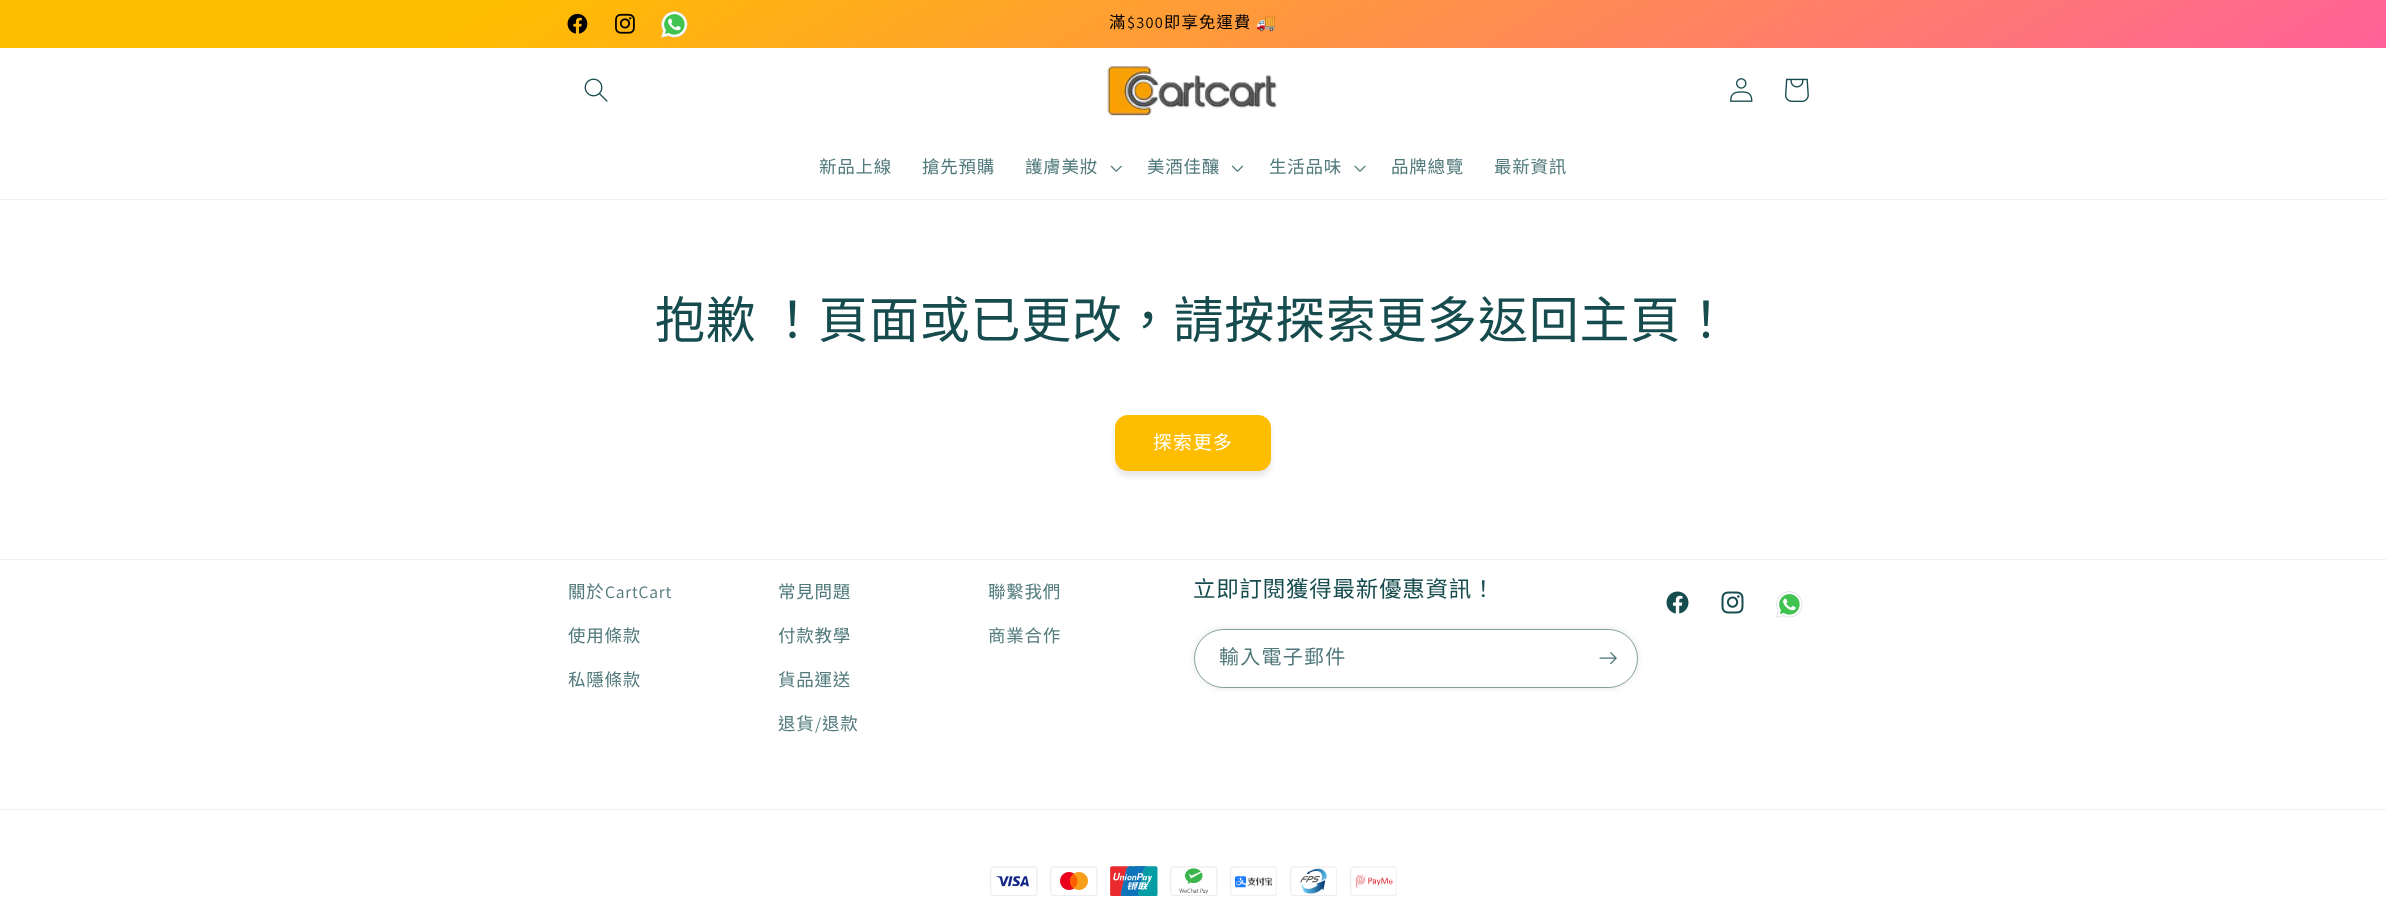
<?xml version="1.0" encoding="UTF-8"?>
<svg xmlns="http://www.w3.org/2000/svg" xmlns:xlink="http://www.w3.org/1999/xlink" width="2386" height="916">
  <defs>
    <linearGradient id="g1" gradientUnits="userSpaceOnUse" x1="674" y1="-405" x2="1712" y2="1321"><stop offset="0.13" stop-color="#ffbd00" /><stop offset="0.78" stop-color="#ff46c7" /></linearGradient>
    <clipPath id="clip1"><path d="M 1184 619 h 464 v 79 h -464 z m 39.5 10 h 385 c 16.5 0 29.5 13 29.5 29.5 c 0 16.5 -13 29.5 -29.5 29.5 h -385 c -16.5 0 -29.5 -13 -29.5 -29.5 c 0 -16.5 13 -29.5 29.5 -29.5 z" clip-rule="evenodd" /></clipPath>
  </defs>
  <rect width="100%" height="100%" fill="#ffffff" />
  <rect width="2386" height="48" fill="url(#g1)" />
  <image x="567" y="13" width="21" height="21" xlink:href="image1.png" />
  <image x="615" y="13" width="20" height="21" xlink:href="image2.png" />
  <image x="661" y="11" width="27" height="27" xlink:href="image3.png" />
  <rect y="199" width="2386" height="1" fill="#ecf1f1" />
  <image x="584" y="78" width="24" height="24" xlink:href="image4.png" />
  <image x="1107" y="66" width="170" height="51" xlink:href="image5.png" />
  <image x="1730" y="78" width="23" height="24" xlink:href="image6.png" />
  <image x="1785" y="78" width="24" height="24" xlink:href="image7.png" />
  <image x="1110" y="165" width="12" height="7" xlink:href="image8.png" />
  <image x="1231" y="165" width="13" height="7" xlink:href="image9.png" />
  <image x="1354" y="165" width="12" height="7" xlink:href="image10.png" />
  <rect x="1115" y="420" width="156" height="56" rx="13" fill="#000000" fill-opacity="0.1" filter="blur(3px)" />
  <rect x="1115" y="415" width="156" height="56" rx="13" fill="#ffbd00" />
  <rect y="559" width="2386" height="1" fill="#ecf1f1" />
  <g clip-path="url(#clip1)">
    <rect x="1194" y="629" width="444" height="59" rx="29.5" fill="#000000" fill-opacity="0.1" filter="blur(3px)" />
  </g>
  <rect x="1194.5" y="629.5" width="443" height="58" rx="29" fill="none" stroke="#174c4f" stroke-opacity="0.55" />
  <image x="1599" y="652" width="18" height="13" xlink:href="image11.png" />
  <image x="1666" y="591" width="23" height="23" xlink:href="image12.png" />
  <image x="1721" y="591" width="23" height="23" xlink:href="image13.png" />
  <image x="1776" y="591" width="27" height="27" xlink:href="image14.png" />
  <rect y="809" width="2386" height="1" fill="#ecf1f1" />
  <image x="990" y="866" width="48" height="30" xlink:href="image15.png" />
  <image x="1050" y="866" width="48" height="30" xlink:href="image16.png" />
  <image x="1110" y="866" width="48" height="30" xlink:href="image17.png" />
  <image x="1170" y="866" width="48" height="30" xlink:href="image18.png" />
  <image x="1230" y="866" width="47" height="30" xlink:href="image19.png" />
  <image x="1290" y="866" width="47" height="30" xlink:href="image20.png" />
  <image x="1350" y="866" width="47" height="30" xlink:href="image21.png" />
  <text x="1109" y="28" style="font-family: Noto Sans CJK TC; font-size: 16.25px; letter-spacing: 1.25px; fill: #000000">滿</text>
  <text x="1127" y="28" style="font-family: Assistant; font-size: 16.25px; letter-spacing: 1.25px; fill: #000000">$300</text>
  <text x="1164" y="28" style="font-family: Noto Sans CJK TC; font-size: 16.25px; letter-spacing: 1.25px; fill: #000000">即享免運費</text>
  <text x="1256" y="28" style="font-family: Noto Color Emoji; font-size: 16.25px; letter-spacing: 1.25px; fill: #000000">🚚</text>
  <text x="819" y="173" style="font-family: Noto Sans CJK TC; font-size: 17.5px; letter-spacing: 0.75px; fill: #51797b">新品上線</text>
  <text x="922" y="173" style="font-family: Noto Sans CJK TC; font-size: 17.5px; letter-spacing: 0.75px; fill: #51797b">搶先預購</text>
  <text x="1025" y="173" style="font-family: Noto Sans CJK TC; font-size: 17.5px; letter-spacing: 0.75px; fill: #51797b">護膚美妝</text>
  <text x="1147" y="173" style="font-family: Noto Sans CJK TC; font-size: 17.5px; letter-spacing: 0.75px; fill: #51797b">美酒佳釀</text>
  <text x="1269" y="173" style="font-family: Noto Sans CJK TC; font-size: 17.5px; letter-spacing: 0.75px; fill: #51797b">生活品味</text>
  <text x="1391" y="173" style="font-family: Noto Sans CJK TC; font-size: 17.5px; letter-spacing: 0.75px; fill: #51797b">品牌總覽</text>
  <text x="1494" y="173" style="font-family: Noto Sans CJK TC; font-size: 17.5px; letter-spacing: 0.75px; fill: #51797b">最新資訊</text>
  <text x="655" y="338" word-spacing="-1" style="font-family: Noto Sans CJK TC; font-size: 50px; letter-spacing: 0.75px; fill: #174c4f">抱歉 ！頁面或已更改，請按探索更多返回主頁！</text>
  <text x="1153" y="449" style="font-family: Noto Sans CJK TC; font-size: 18.75px; letter-spacing: 1.25px; fill: #ffffff">探索更多</text>
  <text x="568" y="598" style="font-family: Noto Sans CJK TC; font-size: 17.5px; letter-spacing: 0.75px; fill: #51797b">關於</text>
  <text x="605" y="598" style="font-family: Assistant; font-size: 17.5px; letter-spacing: 0.75px; fill: #51797b">CartCart</text>
  <text x="568" y="642" style="font-family: Noto Sans CJK TC; font-size: 17.5px; letter-spacing: 0.75px; fill: #51797b">使用條款</text>
  <text x="568" y="686" style="font-family: Noto Sans CJK TC; font-size: 17.5px; letter-spacing: 0.75px; fill: #51797b">私隱條款</text>
  <text x="778" y="598" style="font-family: Noto Sans CJK TC; font-size: 17.5px; letter-spacing: 0.75px; fill: #51797b">常見問題</text>
  <text x="778" y="642" style="font-family: Noto Sans CJK TC; font-size: 17.5px; letter-spacing: 0.75px; fill: #51797b">付款教學</text>
  <text x="778" y="686" style="font-family: Noto Sans CJK TC; font-size: 17.5px; letter-spacing: 0.75px; fill: #51797b">貨品運送</text>
  <text x="778" y="730" style="font-family: Noto Sans CJK TC; font-size: 17.5px; letter-spacing: 0.75px; fill: #51797b">退貨</text>
  <text x="815" y="730" style="font-family: Assistant; font-size: 17.5px; letter-spacing: 0.75px; fill: #51797b">/</text>
  <text x="822" y="730" style="font-family: Noto Sans CJK TC; font-size: 17.5px; letter-spacing: 0.75px; fill: #51797b">退款</text>
  <text x="988" y="598" style="font-family: Noto Sans CJK TC; font-size: 17.5px; letter-spacing: 0.75px; fill: #51797b">聯繫我們</text>
  <text x="988" y="642" style="font-family: Noto Sans CJK TC; font-size: 17.5px; letter-spacing: 0.75px; fill: #51797b">商業合作</text>
  <text x="1193" y="597" style="font-family: Noto Sans CJK TC; font-size: 22.5px; letter-spacing: 0.75px; fill: #174c4f">立即訂閱獲得最新優惠資訊！</text>
  <text x="1219" y="664" style="font-family: Noto Sans CJK TC; font-size: 20px; letter-spacing: 1.25px; fill: #51797b">輸入電子郵件</text>
</svg>
